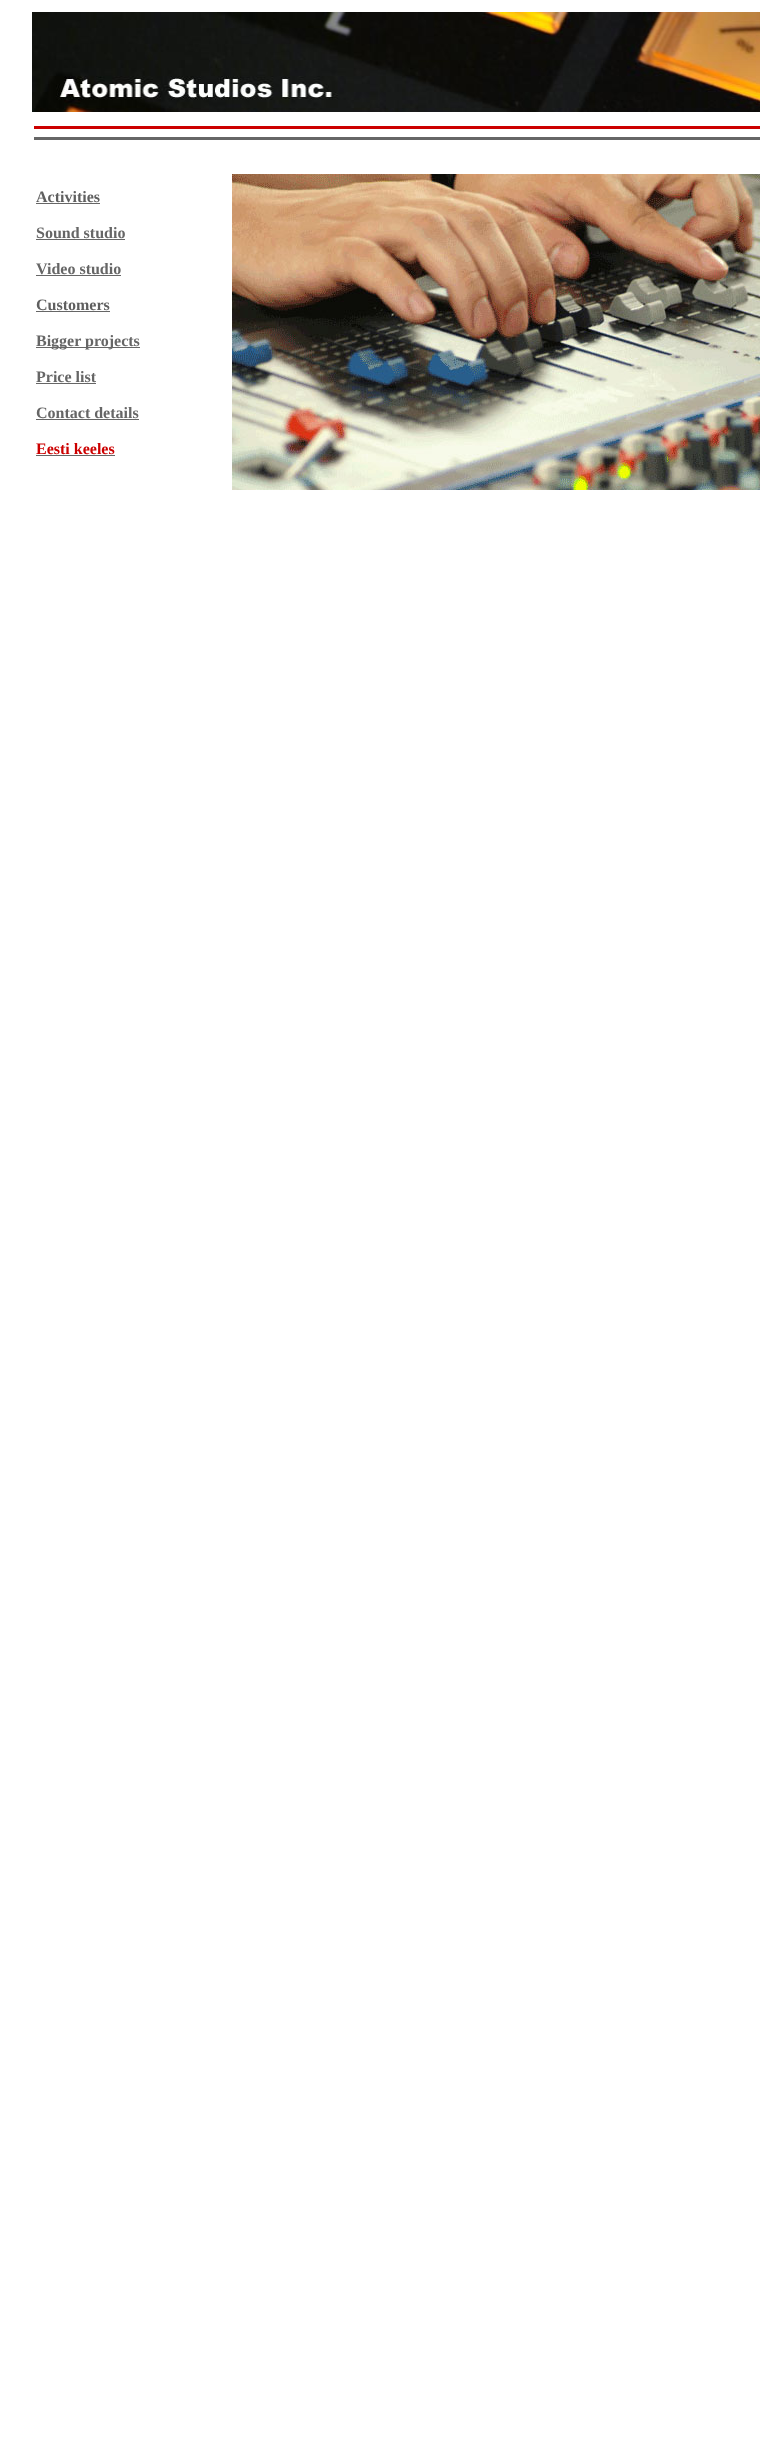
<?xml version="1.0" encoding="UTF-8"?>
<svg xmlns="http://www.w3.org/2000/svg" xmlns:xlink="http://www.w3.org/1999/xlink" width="760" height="2460">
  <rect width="100%" height="100%" fill="#ffffff" />
  <image x="32" y="12" width="728" height="100" xlink:href="image1.png" />
  <rect x="34" y="126" width="726" height="3" fill="#cc0000" />
  <rect x="34" y="137" width="726" height="3" fill="#666666" />
  <rect x="36" y="203" width="64" height="1" fill="#666666" />
  <rect x="36" y="239" width="89" height="1" fill="#666666" />
  <rect x="36" y="275" width="85" height="1" fill="#666666" />
  <rect x="36" y="311" width="74" height="1" fill="#666666" />
  <rect x="36" y="347" width="104" height="1" fill="#666666" />
  <rect x="36" y="383" width="60" height="1" fill="#666666" />
  <rect x="36" y="419" width="103" height="1" fill="#666666" />
  <rect x="36" y="455" width="79" height="1" fill="#666666" />
  <image x="232" y="174" width="528" height="316" xlink:href="image2.png" />
  <text x="36" y="202" style="font-family: Liberation Serif; font-size: 16px; font-weight: bold; fill: #5f5f5f">Activities</text>
  <text x="36" y="238" style="font-family: Liberation Serif; font-size: 16px; font-weight: bold; fill: #666666">Sound studio</text>
  <text x="36" y="274" style="font-family: Liberation Serif; font-size: 16px; font-weight: bold; fill: #666666">Video studio</text>
  <text x="36" y="310" style="font-family: Liberation Serif; font-size: 16px; font-weight: bold; fill: #5f5f5f">Customers</text>
  <text x="36" y="346" style="font-family: Liberation Serif; font-size: 16px; font-weight: bold; fill: #666666">Bigger projects</text>
  <text x="36" y="382" style="font-family: Liberation Serif; font-size: 16px; font-weight: bold; fill: #666666">Price list</text>
  <text x="36" y="418" style="font-family: Liberation Serif; font-size: 16px; font-weight: bold; fill: #666666">Contact details</text>
  <text x="36" y="454" style="font-family: Liberation Serif; font-size: 16px; font-weight: bold; fill: #cc0000">Eesti keeles</text>
</svg>
